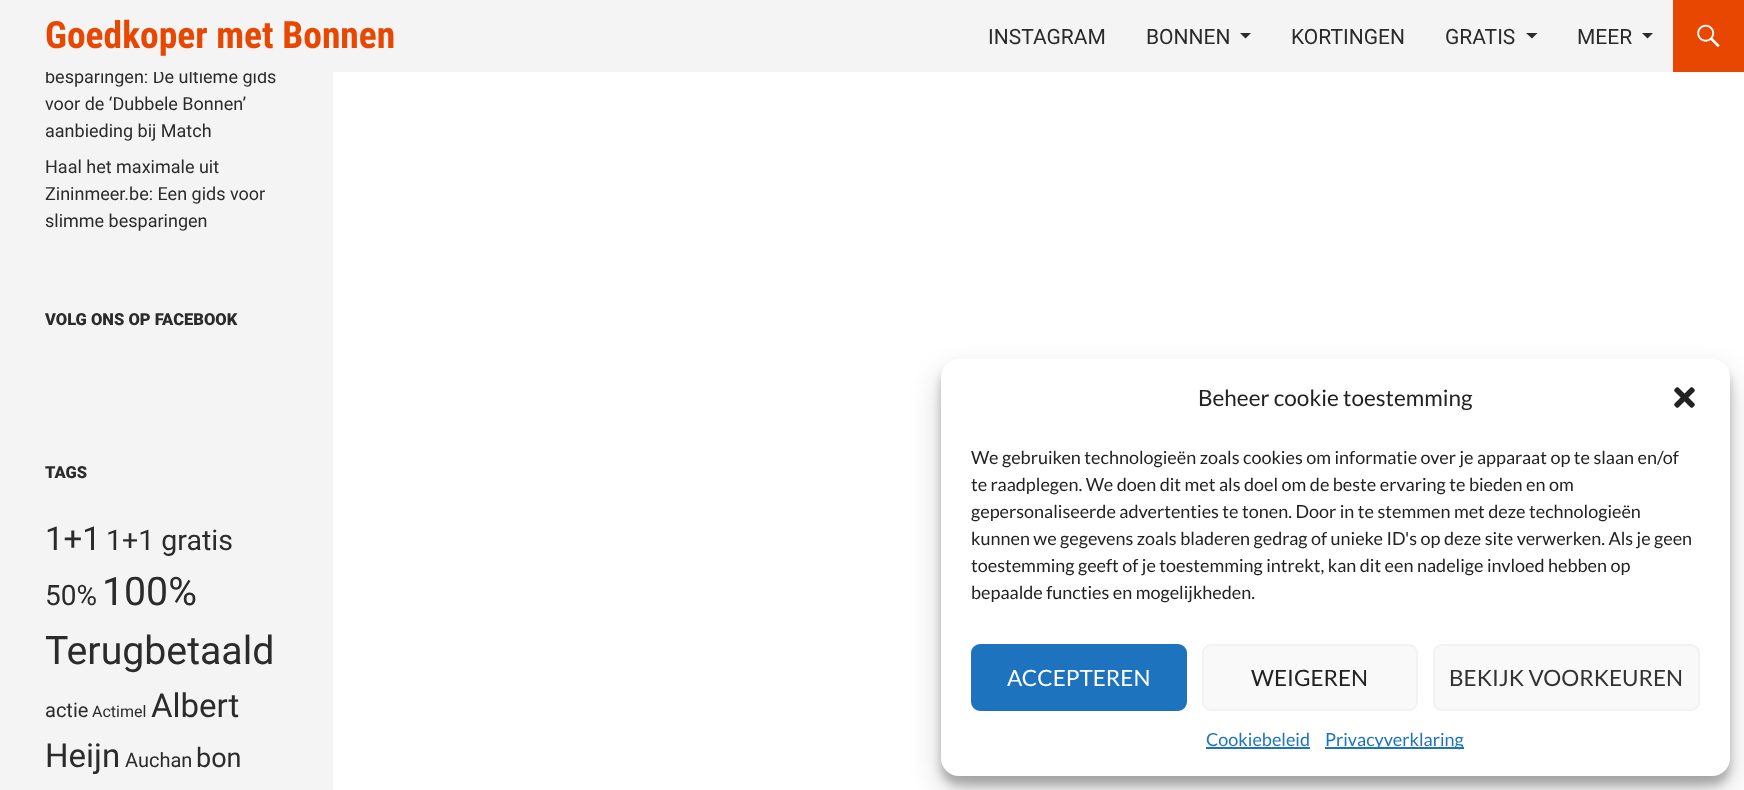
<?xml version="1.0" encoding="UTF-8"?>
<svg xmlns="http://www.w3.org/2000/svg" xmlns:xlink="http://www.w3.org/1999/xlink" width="1744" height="790">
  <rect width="100%" height="100%" fill="#ffffff" />
  <rect x="1673" width="71" height="72" fill="#e84702" />
  <image x="1697" y="24" width="23" height="24" xlink:href="image1.png" />
  <rect y="72" width="333" height="718" fill="#f4f4f4" />
  <rect x="941" y="368" width="789" height="417" rx="18" fill="#000000" fill-opacity="0.23" filter="blur(4.5px)" />
  <rect x="941" y="374" width="789" height="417" rx="18" fill="#000000" fill-opacity="0.19" filter="blur(15px)" />
  <rect x="941" y="359" width="789" height="417" rx="18" fill="#ffffff" />
  <image x="1674" y="387" width="21" height="21" xlink:href="image2.png" />
  <rect x="972" y="645" width="214" height="65" rx="8" fill="#1e73be" stroke="#1e73be" stroke-width="2" />
  <rect x="1203" y="645" width="214" height="65" rx="8" fill="#f9f9f9" stroke="#f2f2f2" stroke-width="2" />
  <rect x="1434" y="645" width="265" height="65" rx="8" fill="#f9f9f9" stroke="#f2f2f2" stroke-width="2" />
  <rect x="1206" y="747" width="104" height="2" fill="#1e73be" />
  <rect x="1325" y="747" width="139" height="2" fill="#1e73be" />
  <text x="45" y="83" style="font-family: Roboto; font-size: 18px; fill: #2b2b2b">besparingen: De ultieme gids</text>
  <rect width="1673" height="72" fill="#f4f4f4" />
  <path d="M 1642 33 l 5.5 5.5 l 5.5 -5.5 z" fill="#2b2b2b" />
  <text x="1577" y="44" style="font-family: Roboto; font-size: 21px; fill: #2b2b2b">MEER</text>
  <path d="M 1526 33 l 6 5.5 l 5.5 -5.5 z" fill="#2b2b2b" />
  <text x="1445" y="44" style="font-family: Roboto; font-size: 21px; fill: #2b2b2b">GRATIS</text>
  <text x="1291" y="44" style="font-family: Roboto; font-size: 21px; fill: #2b2b2b">KORTINGEN</text>
  <path d="M 1240 33 l 5.5 5.5 l 5.5 -5.5 z" fill="#2b2b2b" />
  <text x="1146" y="44" style="font-family: Roboto; font-size: 21px; fill: #2b2b2b">BONNEN</text>
  <text x="988" y="44" style="font-family: Roboto; font-size: 21px; fill: #2b2b2b">INSTAGRAM</text>
  <text x="45" y="48" style="font-family: Roboto Condensed; font-size: 37.5px; font-weight: bold; fill: #e84702">Goedkoper met Bonnen</text>
  <text x="45" y="110" style="font-family: Roboto; font-size: 18px; fill: #2b2b2b">voor de ‘Dubbele Bonnen’</text>
  <text x="45" y="137" style="font-family: Roboto; font-size: 18px; fill: #2b2b2b">aanbieding bij Match</text>
  <text x="45" y="173" style="font-family: Roboto; font-size: 18px; fill: #2b2b2b">Haal het maximale uit</text>
  <text x="45" y="200" style="font-family: Roboto; font-size: 18px; fill: #2b2b2b">Zininmeer.be: Een gids voor</text>
  <text x="45" y="227" style="font-family: Roboto; font-size: 18px; fill: #2b2b2b">slimme besparingen</text>
  <text x="45" y="325" style="font-family: Roboto; font-size: 16.5px; font-weight: 900; fill: #2b2b2b">VOLG ONS OP FACEBOOK</text>
  <text x="45" y="478" style="font-family: Roboto; font-size: 16.5px; font-weight: 900; fill: #2b2b2b">TAGS</text>
  <text x="45" y="550" style="font-family: Roboto; font-size: 33px; fill: #2b2b2b">1+1</text>
  <text x="106" y="550" style="font-family: Roboto; font-size: 28.5px; fill: #2b2b2b">1+1 gratis</text>
  <text x="45" y="605" style="font-family: Roboto; font-size: 28px; fill: #2b2b2b">50%</text>
  <text x="102" y="605" style="font-family: Roboto; font-size: 39.25px; fill: #2b2b2b">100%</text>
  <text x="45" y="664" style="font-family: Roboto; font-size: 39.25px; fill: #2b2b2b">Terugbetaald</text>
  <text x="45" y="717" style="font-family: Roboto; font-size: 20px; fill: #2b2b2b">actie</text>
  <text x="92" y="717" style="font-family: Roboto; font-size: 16px; fill: #2b2b2b">Actimel</text>
  <text x="151" y="717" style="font-family: Roboto; font-size: 33px; fill: #2b2b2b">Albert</text>
  <text x="45" y="767" style="font-family: Roboto; font-size: 33px; fill: #2b2b2b">Heijn</text>
  <text x="125" y="767" style="font-family: Roboto; font-size: 20px; fill: #2b2b2b">Auchan</text>
  <text x="196" y="767" style="font-family: Roboto; font-size: 27px; fill: #2b2b2b">bon</text>
  <text x="1198" y="406" style="font-family: Lato; font-size: 22.5px; fill: #222222">Beheer cookie toestemming</text>
  <text x="971" y="464" style="font-family: Lato; font-size: 18px; fill: #222222">We gebruiken technologieën zoals cookies om informatie over je apparaat op te slaan en/of</text>
  <text x="971" y="491" style="font-family: Lato; font-size: 18px; fill: #222222">te raadplegen. We doen dit met als doel om de beste ervaring te bieden en om</text>
  <text x="971" y="518" style="font-family: Lato; font-size: 18px; fill: #222222">gepersonaliseerde advertenties te tonen. Door in te stemmen met deze technologieën</text>
  <text x="971" y="545" style="font-family: Lato; font-size: 18px; fill: #222222">kunnen we gegevens zoals bladeren gedrag of unieke ID's op deze site verwerken. Als je geen</text>
  <text x="971" y="572" style="font-family: Lato; font-size: 18px; fill: #222222">toestemming geeft of je toestemming intrekt, kan dit een nadelige invloed hebben op</text>
  <text x="971" y="599" style="font-family: Lato; font-size: 18px; fill: #222222">bepaalde functies en mogelijkheden.</text>
  <text x="1007" y="686" style="font-family: Lato; font-size: 22.5px; fill: #ffffff">ACCEPTEREN</text>
  <text x="1251" y="686" style="font-family: Lato; font-size: 22.5px; fill: #222222">WEIGEREN</text>
  <text x="1449" y="686" style="font-family: Lato; font-size: 22.5px; fill: #333333">BEKIJK VOORKEUREN</text>
  <text x="1206" y="746" style="font-family: Lato; font-size: 18px; fill: #1e73be">Cookiebeleid</text>
  <text x="1325" y="746" style="font-family: Lato; font-size: 18px; fill: #1e73be">Privacyverklaring</text>
</svg>
